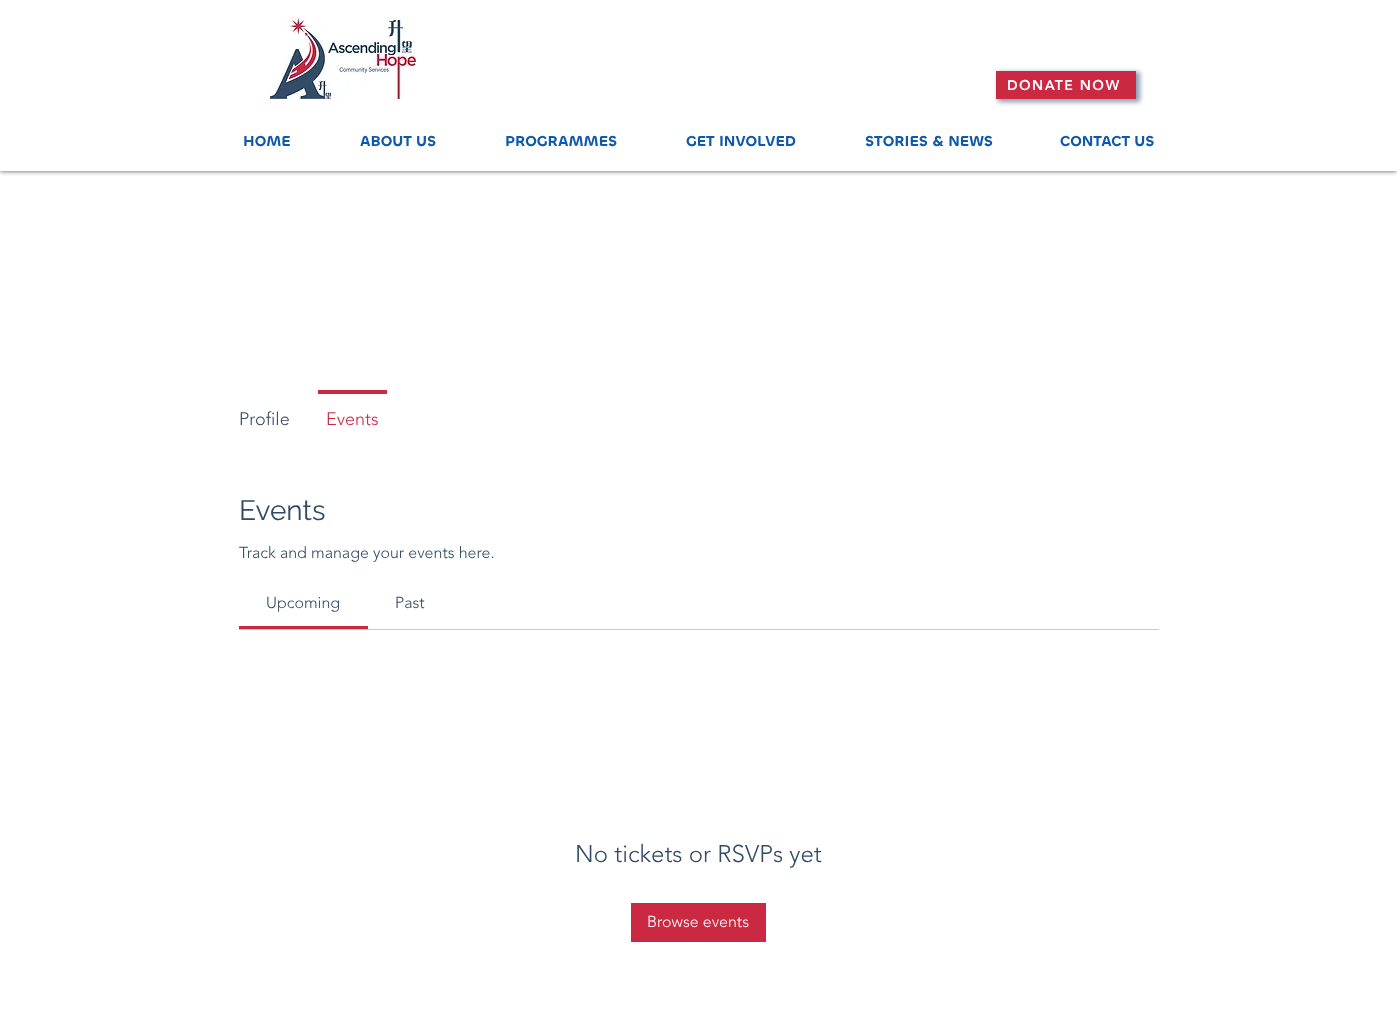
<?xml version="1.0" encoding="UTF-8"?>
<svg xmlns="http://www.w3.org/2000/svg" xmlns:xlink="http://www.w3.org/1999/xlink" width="1397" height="1021">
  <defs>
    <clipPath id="clip1"><rect x="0" y="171" width="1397" height="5" /></clipPath>
  </defs>
  <rect width="100%" height="100%" fill="#ffffff" />
  <g clip-path="url(#clip1)">
    <rect width="1397" height="171" fill="#000000" fill-opacity="0.7" filter="blur(2.5px)" />
  </g>
  <image x="270" y="18" width="146" height="81" xlink:href="image1.png" />
  <rect x="998" y="72" width="142" height="30" fill="#436386" fill-opacity="0.63" filter="blur(2.5px)" />
  <rect x="996" y="71" width="140" height="28" fill="#cb2942" />
  <rect x="318" y="390" width="69" height="4" fill="#cb2942" />
  <rect x="239" y="626" width="129" height="3" fill="#cb2942" />
  <rect x="239" y="629" width="920" height="1" fill="#c2c9d1" />
  <rect x="631" y="903" width="135" height="39" fill="#cb2942" />
  <text x="1007" y="90" style="font-family: 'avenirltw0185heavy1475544'; font-size: 14px; font-weight: 900; letter-spacing: 1.4px; fill: #ffffff">DONATE NOW</text>
  <text x="243" y="146" style="font-family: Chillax; font-size: 15px; font-weight: 600; fill: #0e59ab">HOME</text>
  <text x="360" y="146" style="font-family: Chillax; font-size: 15px; font-weight: 600; fill: #0e59ab">ABOUT US</text>
  <text x="505" y="146" style="font-family: Chillax; font-size: 15px; font-weight: 600; fill: #0e59ab">PROGRAMMES</text>
  <text x="686" y="146" style="font-family: Chillax; font-size: 15px; font-weight: 600; fill: #0e59ab">GET INVOLVED</text>
  <text x="865" y="146" style="font-family: Chillax; font-size: 15px; font-weight: 600; fill: #0e59ab">STORIES &amp; NEWS</text>
  <text x="1060" y="146" style="font-family: Chillax; font-size: 15px; font-weight: 600; fill: #0e59ab">CONTACT US</text>
  <text x="239" y="425" style="font-family: 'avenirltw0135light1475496'; font-size: 18px; font-weight: 300; fill: #324a64">Profile</text>
  <text x="326" y="425" style="font-family: 'avenirltw0135light1475496'; font-size: 18px; font-weight: 300; fill: #cb2942">Events</text>
  <text x="239" y="520" style="font-family: Raleway; font-size: 28px; fill: #324a64">Events</text>
  <text x="239" y="558" style="font-family: 'avenirltw0135light1475496'; font-size: 16px; font-weight: 300; fill: #324a64">Track and manage your events here.</text>
  <text x="266" y="608" style="font-family: 'avenirltw0135light1475496'; font-size: 16px; font-weight: 300; fill: #324a64">Upcoming</text>
  <text x="395" y="608" style="font-family: 'avenirltw0135light1475496'; font-size: 16px; font-weight: 300; fill: #324a64">Past</text>
  <text x="575" y="862" style="font-family: 'avenirltw0135light1475496'; font-size: 24px; font-weight: 300; fill: #324a64">No tickets or RSVPs yet</text>
  <text x="647" y="927" style="font-family: 'avenirltw0135light1475496'; font-size: 16px; font-weight: 300; fill: #ffffff">Browse events</text>
</svg>
